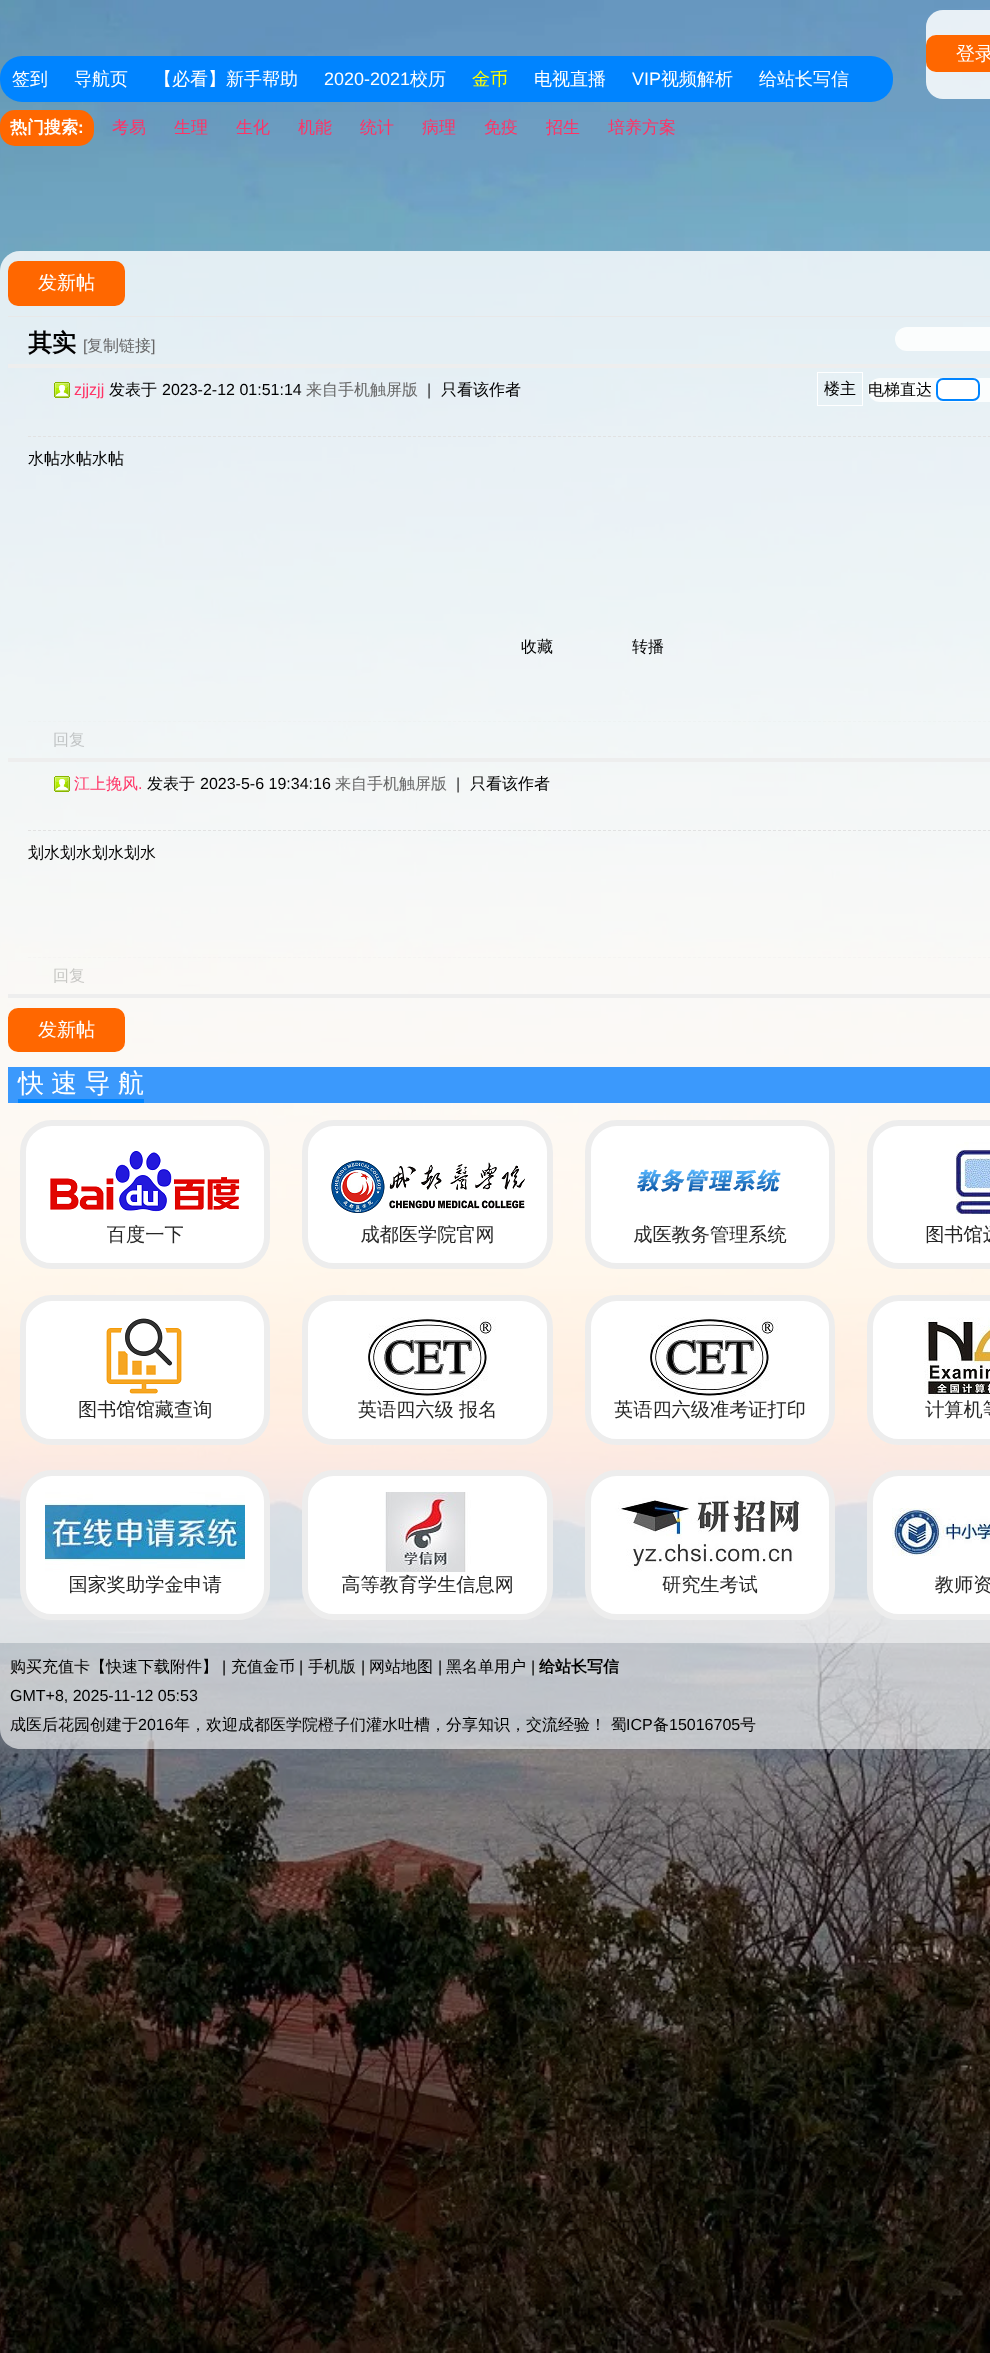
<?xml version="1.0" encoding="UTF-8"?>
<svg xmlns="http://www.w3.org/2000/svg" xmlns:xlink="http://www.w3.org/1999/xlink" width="990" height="2353">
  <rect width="100%" height="100%" fill="#ffffff" />
  <image x="0" y="0" width="990" height="2353" xlink:href="image1.png" />
  <rect x="926" y="10" width="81" height="89" rx="17" fill="#ffffff" fill-opacity="0.85" />
  <rect x="926" y="35" width="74" height="37" rx="10" fill="#ff6700" />
  <rect y="56" width="893" height="46" rx="22" fill="#0084ff" />
  <rect y="110" width="94" height="36" rx="15" fill="#ff6700" />
  <path d="M 20 251 h 970 c 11 0 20 9 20 20 v 1372 h -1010 v -1372 c 0 -11 9 -20 20 -20 z" fill="#ffffff" fill-opacity="0.8" />
  <rect x="8" y="261" width="117" height="45" rx="10" fill="#ff6700" />
  <rect x="8" y="316" width="982" height="1" fill="#e8e8e8" />
  <rect x="895" y="327" width="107" height="24" rx="12" fill="#fbfdfd" />
  <rect x="8" y="364" width="982" height="4" fill="#eeeeee" />
  <path d="M 28 436.5 h 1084" fill="none" stroke="#e2e2e2" stroke-dasharray="3 2" />
  <image x="54" y="382" width="16" height="16" xlink:href="image2.png" />
  <rect x="817.5" y="372.5" width="45" height="33" fill="none" stroke="#ffffff" />
  <rect x="868" y="378" width="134" height="24" rx="12" fill="#fbfdfd" />
  <rect x="937" y="379" width="42" height="21" rx="6" fill="#ffffff" stroke="#0084ff" stroke-width="2" />
  <path d="M 28 721.5 h 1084" fill="none" stroke="#eef2f2" stroke-dasharray="3 2" />
  <rect x="8" y="758" width="982" height="4" fill="#eeeeee" />
  <path d="M 28 830.5 h 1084" fill="none" stroke="#e2e2e2" stroke-dasharray="3 2" />
  <image x="54" y="776" width="16" height="16" xlink:href="image3.png" />
  <path d="M 28 957.5 h 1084" fill="none" stroke="#f5f4f2" stroke-dasharray="3 2" />
  <rect x="8" y="994" width="982" height="4" fill="#eeeeee" />
  <rect x="8" y="1008" width="117" height="44" rx="10" fill="#ff6700" />
  <rect x="8" y="1067" width="982" height="36" fill="#3b99fc" />
  <rect x="18" y="1099" width="126" height="4" fill="#0084ff" />
  <image x="20" y="1120" width="970" height="500" xlink:href="image4.png" />
  <path d="M 0 1643 h 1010 v 86 c 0 11 -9 20 -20 20 h -970 c -11 0 -20 -9 -20 -20 z" fill="#ffffff" fill-opacity="0.6" />
  <text x="956" y="60" style="font-family: WenQuanYi Zen Hei; font-size: 19px; font-weight: 500; fill: #ffffff">登录</text>
  <text x="12" y="85" style="font-family: WenQuanYi Zen Hei; font-size: 18px; font-weight: 500; fill: #ffffff">签到</text>
  <text x="74" y="85" style="font-family: WenQuanYi Zen Hei; font-size: 18px; font-weight: 500; fill: #ffffff">导航页</text>
  <text x="154" y="85" style="font-family: WenQuanYi Zen Hei; font-size: 18px; font-weight: 500; fill: #ffffff">【必看】新手帮助</text>
  <text x="324" y="85" style="font-family: Liberation Sans; font-size: 18px; fill: #ffffff">2020-2021</text>
  <text x="410" y="85" style="font-family: WenQuanYi Zen Hei; font-size: 18px; font-weight: 500; fill: #ffffff">校历</text>
  <text x="472" y="85" style="font-family: WenQuanYi Zen Hei; font-size: 18px; font-weight: 500; fill: #ffff00">金币</text>
  <text x="534" y="85" style="font-family: WenQuanYi Zen Hei; font-size: 18px; font-weight: 500; fill: #ffffff">电视直播</text>
  <text x="632" y="85" style="font-family: Liberation Sans; font-size: 18px; fill: #ffffff">VIP</text>
  <text x="661" y="85" style="font-family: WenQuanYi Zen Hei; font-size: 18px; font-weight: 500; fill: #ffffff">视频解析</text>
  <text x="759" y="85" style="font-family: WenQuanYi Zen Hei; font-size: 18px; font-weight: 500; fill: #ffffff">给站长写信</text>
  <text x="10" y="133" style="font-family: WenQuanYi Zen Hei; font-size: 17px; font-weight: bold; fill: #ffffff">热门搜索</text>
  <text x="78" y="133" style="font-family: Liberation Sans; font-size: 17px; font-weight: bold; fill: #ffffff">:</text>
  <text x="112" y="133" style="font-family: WenQuanYi Zen Hei; font-size: 17px; font-weight: 500; fill: #ff3366">考易</text>
  <text x="174" y="133" style="font-family: WenQuanYi Zen Hei; font-size: 17px; font-weight: 500; fill: #ff3366">生理</text>
  <text x="236" y="133" style="font-family: WenQuanYi Zen Hei; font-size: 17px; font-weight: 500; fill: #ff3366">生化</text>
  <text x="298" y="133" style="font-family: WenQuanYi Zen Hei; font-size: 17px; font-weight: 500; fill: #ff3366">机能</text>
  <text x="360" y="133" style="font-family: WenQuanYi Zen Hei; font-size: 17px; font-weight: 500; fill: #ff3366">统计</text>
  <text x="422" y="133" style="font-family: WenQuanYi Zen Hei; font-size: 17px; font-weight: 500; fill: #ff3366">病理</text>
  <text x="484" y="133" style="font-family: WenQuanYi Zen Hei; font-size: 17px; font-weight: 500; fill: #ff3366">免疫</text>
  <text x="546" y="133" style="font-family: WenQuanYi Zen Hei; font-size: 17px; font-weight: 500; fill: #ff3366">招生</text>
  <text x="608" y="133" style="font-family: WenQuanYi Zen Hei; font-size: 17px; font-weight: 500; fill: #ff3366">培养方案</text>
  <text x="38" y="289" style="font-family: WenQuanYi Zen Hei; font-size: 19px; font-weight: 500; fill: #ffffff">发新帖</text>
  <text x="28" y="351" style="font-family: WenQuanYi Zen Hei; font-size: 24px; font-weight: bold; fill: #000000">其实</text>
  <text x="83" y="351" style="font-family: Liberation Sans; font-size: 16px; fill: #666666">[</text>
  <text x="87" y="351" style="font-family: WenQuanYi Zen Hei; font-size: 16px; font-weight: 500; fill: #666666">复制链接</text>
  <text x="151" y="351" style="font-family: Liberation Sans; font-size: 16px; fill: #666666">]</text>
  <text x="74" y="395" style="font-family: Liberation Sans; font-size: 16px; fill: #ff3366">zjjzjj</text>
  <text x="109" y="395" style="font-family: WenQuanYi Zen Hei; font-size: 16px; font-weight: 500; fill: #000000">发表于</text>
  <text x="162" y="395" style="font-family: Liberation Sans; font-size: 16px; fill: #000000">2023-2-12 01:51:14</text>
  <text x="306" y="395" style="font-family: WenQuanYi Zen Hei; font-size: 16px; font-weight: 500; fill: #666666">来自手机触屏版</text>
  <text x="427" y="395" style="font-family: Liberation Sans; font-size: 16px; fill: #333333">|</text>
  <text x="441" y="395" style="font-family: WenQuanYi Zen Hei; font-size: 16px; font-weight: 500; fill: #000000">只看该作者</text>
  <text x="824" y="394" style="font-family: WenQuanYi Zen Hei; font-size: 16px; font-weight: 500; fill: #000000">楼主</text>
  <text x="868" y="395" style="font-family: WenQuanYi Zen Hei; font-size: 16px; font-weight: 500; fill: #000000">电梯直达</text>
  <text x="28" y="464" style="font-family: WenQuanYi Zen Hei; font-size: 16px; font-weight: 500; fill: #000000">水帖水帖水帖</text>
  <text x="521" y="652" style="font-family: WenQuanYi Zen Hei; font-size: 16px; font-weight: 500; fill: #000000">收藏</text>
  <text x="632" y="652" style="font-family: WenQuanYi Zen Hei; font-size: 16px; font-weight: 500; fill: #000000">转播</text>
  <text x="53" y="745" style="font-family: WenQuanYi Zen Hei; font-size: 16px; font-weight: 500; fill: #c1c4c5">回复</text>
  <text x="74" y="789" style="font-family: WenQuanYi Zen Hei; font-size: 16px; font-weight: 500; fill: #ff3366">江上挽风</text>
  <text x="138" y="789" style="font-family: Liberation Sans; font-size: 16px; fill: #ff3366">.</text>
  <text x="147" y="789" style="font-family: WenQuanYi Zen Hei; font-size: 16px; font-weight: 500; fill: #000000">发表于</text>
  <text x="200" y="789" style="font-family: Liberation Sans; font-size: 16px; fill: #000000">2023-5-6 19:34:16</text>
  <text x="335" y="789" style="font-family: WenQuanYi Zen Hei; font-size: 16px; font-weight: 500; fill: #666666">来自手机触屏版</text>
  <text x="456" y="789" style="font-family: Liberation Sans; font-size: 16px; fill: #333333">|</text>
  <text x="470" y="789" style="font-family: WenQuanYi Zen Hei; font-size: 16px; font-weight: 500; fill: #000000">只看该作者</text>
  <text x="28" y="858" style="font-family: WenQuanYi Zen Hei; font-size: 16px; font-weight: 500; fill: #000000">划水划水划水划水</text>
  <text x="53" y="981" style="font-family: WenQuanYi Zen Hei; font-size: 16px; font-weight: 500; fill: #c7c7c4">回复</text>
  <text x="38" y="1036" style="font-family: WenQuanYi Zen Hei; font-size: 19px; font-weight: 500; fill: #ffffff">发新帖</text>
  <text x="18" y="1092" word-spacing="-0.5" style="font-family: WenQuanYi Zen Hei; font-size: 26px; font-weight: 500; fill: #ffffff">快 速 导 航</text>
  <text x="10" y="1672" style="font-family: WenQuanYi Zen Hei; font-size: 16px; font-weight: 500; fill: #000000">购买充值卡【快速下载附件】</text>
  <text x="222" y="1672" style="font-family: Liberation Sans; font-size: 16px; fill: #000000">|</text>
  <text x="231" y="1672" style="font-family: WenQuanYi Zen Hei; font-size: 16px; font-weight: 500; fill: #000000">充值金币</text>
  <text x="299" y="1672" style="font-family: Liberation Sans; font-size: 16px; fill: #000000">|</text>
  <text x="308" y="1672" style="font-family: WenQuanYi Zen Hei; font-size: 16px; font-weight: 500; fill: #000000">手机版</text>
  <text x="361" y="1672" style="font-family: Liberation Sans; font-size: 16px; fill: #000000">|</text>
  <text x="369" y="1672" style="font-family: WenQuanYi Zen Hei; font-size: 16px; font-weight: 500; fill: #000000">网站地图</text>
  <text x="438" y="1672" style="font-family: Liberation Sans; font-size: 16px; fill: #000000">|</text>
  <text x="446" y="1672" style="font-family: WenQuanYi Zen Hei; font-size: 16px; font-weight: 500; fill: #000000">黑名单用户</text>
  <text x="531" y="1672" style="font-family: Liberation Sans; font-size: 16px; fill: #000000">|</text>
  <text x="539" y="1672" style="font-family: WenQuanYi Zen Hei; font-size: 16px; font-weight: bold; fill: #000000">给站长写信</text>
  <text x="10" y="1701" style="font-family: Liberation Sans; font-size: 16px; fill: #000000">GMT+8, 2025-11-12 05:53</text>
  <text x="10" y="1730" style="font-family: WenQuanYi Zen Hei; font-size: 16px; font-weight: 500; fill: #000000">成医后花园创建于</text>
  <text x="138" y="1730" style="font-family: Liberation Sans; font-size: 16px; fill: #000000">2016</text>
  <text x="174" y="1730" style="font-family: WenQuanYi Zen Hei; font-size: 16px; font-weight: 500; fill: #000000">年，欢迎成都医学院橙子们灌水吐槽，分享知识，交流经验！ 蜀</text>
  <text x="626" y="1730" style="font-family: Liberation Sans; font-size: 16px; fill: #000000">ICP</text>
  <text x="653" y="1730" style="font-family: WenQuanYi Zen Hei; font-size: 16px; font-weight: 500; fill: #000000">备</text>
  <text x="669" y="1730" style="font-family: Liberation Sans; font-size: 16px; fill: #000000">15016705</text>
  <text x="740" y="1730" style="font-family: WenQuanYi Zen Hei; font-size: 16px; font-weight: 500; fill: #000000">号</text>
</svg>
